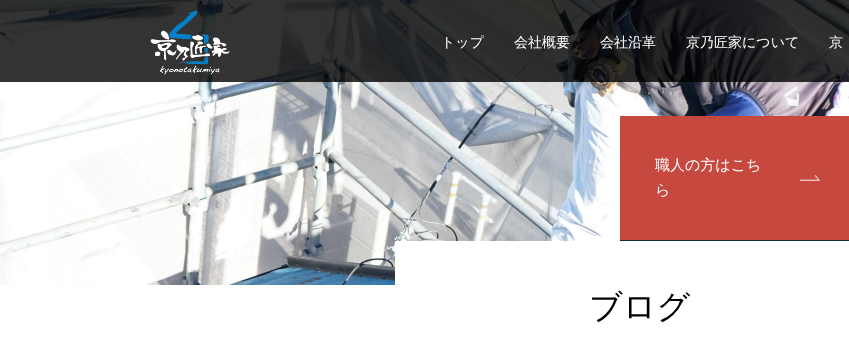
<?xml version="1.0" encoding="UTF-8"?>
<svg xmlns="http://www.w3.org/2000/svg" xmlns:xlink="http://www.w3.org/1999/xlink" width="849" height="339">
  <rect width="100%" height="100%" fill="#ffffff" />
  <image x="0" y="0" width="849" height="285" xlink:href="image1.png" />
  <rect width="849" height="82" fill="#000000" fill-opacity="0.8" />
  <image x="150" y="10" width="80" height="65" xlink:href="image2.png" />
  <rect x="620" y="116" width="229" height="124" fill="#c6483e" />
  <image x="800" y="175" width="20" height="6" xlink:href="image3.png" />
  <rect x="620" y="240" width="229" height="1" fill="#172934" />
  <rect x="395" y="241" width="454" height="44" fill="#ffffff" />
  <text x="441" y="47" style="font-family: WenQuanYi Zen Hei; font-size: 14px; font-weight: 500; fill: #ffffff">トップ</text>
  <text x="514" y="47" style="font-family: WenQuanYi Zen Hei; font-size: 14px; font-weight: 500; fill: #ffffff">会社概要</text>
  <text x="600" y="47" style="font-family: WenQuanYi Zen Hei; font-size: 14px; font-weight: 500; fill: #ffffff">会社沿革</text>
  <text x="686" y="47" style="font-family: WenQuanYi Zen Hei; font-size: 14px; font-weight: 500; fill: #ffffff">京乃匠家について</text>
  <text x="829" y="47" style="font-family: WenQuanYi Zen Hei; font-size: 14px; font-weight: 500; fill: #ffffff">京</text>
  <text x="655" y="170" style="font-family: WenQuanYi Zen Hei; font-size: 15px; font-weight: 500; fill: #ffffff">職人の方はこち</text>
  <text x="655" y="195" style="font-family: WenQuanYi Zen Hei; font-size: 15px; font-weight: 500; fill: #ffffff">ら</text>
  <text x="589" y="318" style="font-family: WenQuanYi Zen Hei; font-size: 33px; font-weight: 500; fill: #000000">ブログ</text>
</svg>
